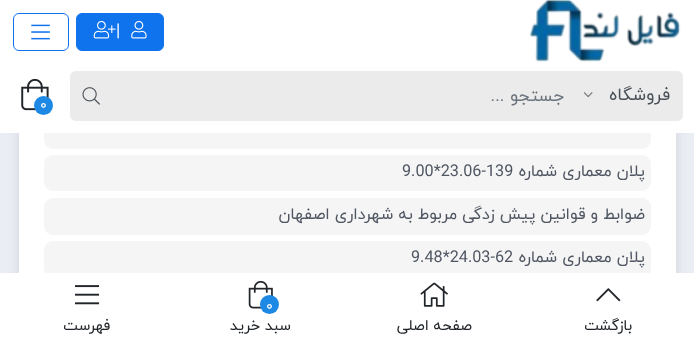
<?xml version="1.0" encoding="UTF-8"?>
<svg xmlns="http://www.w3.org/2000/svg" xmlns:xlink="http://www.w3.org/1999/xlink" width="694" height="342">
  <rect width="100%" height="100%" fill="#ebedf4" />
  <rect x="19" y="25" width="657" height="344" rx="9" fill="#000000" fill-opacity="0.1" filter="blur(6px)" />
  <rect x="19" y="133" width="657" height="140" fill="#ffffff" />
  <rect x="44" y="111" width="607" height="38" rx="9" fill="#f5f5f5" />
  <rect width="694" height="133" fill="#ffffff" />
  <image x="529" y="0" width="152" height="62" xlink:href="image1.png" />
  <rect x="76.5" y="13.5" width="87" height="37" rx="5.5" fill="#0f73ee" stroke="#0f73ee" />
  <image x="131" y="20" width="16" height="19" xlink:href="image2.png" />
  <image x="93" y="20" width="23" height="19" xlink:href="image3.png" />
  <rect x="13.5" y="13.5" width="55" height="37" rx="5.5" fill="none" stroke="#0f73ee" />
  <image x="31" y="24" width="19" height="16" xlink:href="image4.png" />
  <path d="M 584 71 h 93 c 3.5 0 6 2.5 6 6 v 38 c 0 3.5 -2.5 6 -6 6 h -93 z" fill="#ebebeb" />
  <image x="584" y="92" width="9" height="6" xlink:href="image5.png" />
  <rect x="120" y="71" width="464" height="50" fill="#ebebeb" />
  <path d="M 76 71 h 44 v 50 h -44 c -3.5 0 -6 -2.5 -6 -6 v -38 c 0 -3.5 2.5 -6 6 -6 z" fill="#ebebeb" />
  <image x="82" y="87" width="18" height="18" xlink:href="image6.png" />
  <image x="21" y="78" width="28" height="33" xlink:href="image7.png" />
  <circle cx="43.5" cy="105.5" r="9.5" fill="#1e88e5" />
  <rect x="44" y="155" width="607" height="36" rx="9" fill="#f5f5f5" />
  <rect x="44" y="198" width="607" height="37" rx="9" fill="#f5f5f5" />
  <rect x="44" y="241" width="607" height="37" rx="9" fill="#f5f5f5" />
  <rect y="273" width="694" height="69" fill="#ffffff" />
  <image x="596" y="288" width="25" height="14" xlink:href="image8.png" />
  <image x="420" y="282" width="28" height="25" xlink:href="image9.png" />
  <image x="248" y="280" width="25" height="29" xlink:href="image10.png" />
  <circle cx="269.5" cy="304.5" r="9.5" fill="#1e88e5" />
  <image x="75" y="285" width="25" height="20" xlink:href="image11.png" />
  <text x="116" y="36" style="font-family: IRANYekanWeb; font-size: 17.5px; fill: #ffffff">|</text>
  <text x="670" y="100" style="font-family: IRANYekanWeb; font-size: 17.5px; direction: rtl; fill: #495057">فروشگاه</text>
  <text x="564" y="101" style="font-family: IRANYekanWeb; font-size: 17.5px; direction: rtl; fill: #6c757d">جستجو ...</text>
  <text x="40" y="109" style="font-family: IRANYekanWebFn; font-size: 14px; fill: #ffffff">0</text>
  <text x="645" y="176" style="font-family: IRANYekanWeb; font-size: 16.25px; direction: rtl; fill: #505763">پلان معماری شماره</text>
  <text x="402" y="176" style="font-family: IRANYekanWeb; font-size: 16.25px; fill: #505763">9.00*23.06-139</text>
  <text x="645" y="219" style="font-family: IRANYekanWeb; font-size: 16.25px; direction: rtl; fill: #505763">ضوابط و قوانین پیش زدگی مربوط به شهرداری اصفهان</text>
  <text x="645" y="262" style="font-family: IRANYekanWeb; font-size: 16.25px; direction: rtl; fill: #505763">پلان معماری شماره</text>
  <text x="411" y="262" style="font-family: IRANYekanWeb; font-size: 16.25px; fill: #505763">9.48*24.03-62</text>
  <text x="632" y="330" style="font-family: IRANYekanWeb; font-size: 15px; direction: rtl; fill: #212529">بازگشت</text>
  <text x="472" y="330" style="font-family: IRANYekanWeb; font-size: 15px; direction: rtl; fill: #212529">صفحه اصلی</text>
  <text x="266" y="310" style="font-family: IRANYekanWebFn; font-size: 14px; fill: #ffffff">0</text>
  <text x="291" y="330" style="font-family: IRANYekanWeb; font-size: 15px; direction: rtl; fill: #212529">سبد خرید</text>
  <text x="110" y="330" style="font-family: IRANYekanWeb; font-size: 15px; direction: rtl; fill: #212529">فهرست</text>
</svg>
